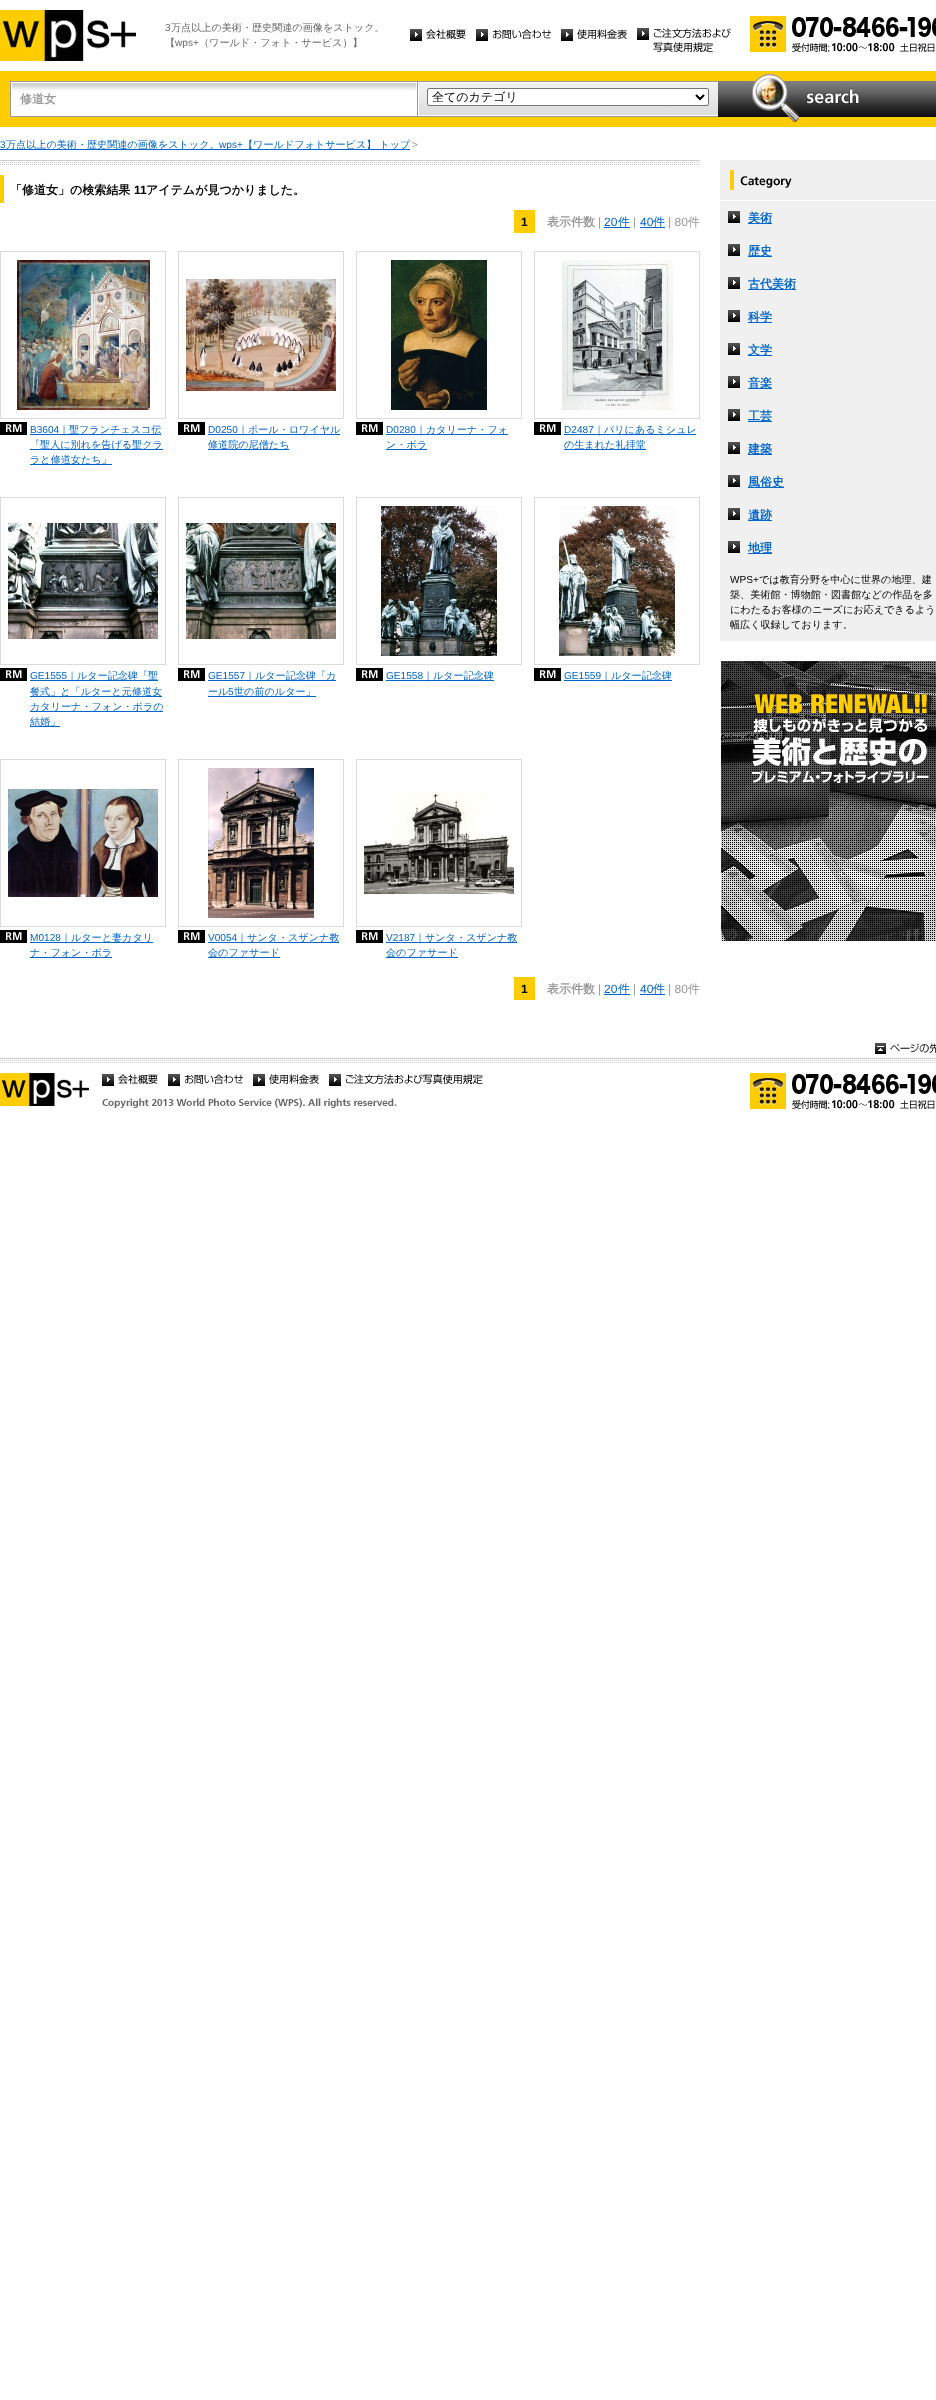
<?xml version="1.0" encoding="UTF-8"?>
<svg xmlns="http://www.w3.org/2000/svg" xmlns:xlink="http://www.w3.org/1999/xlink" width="936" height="2400">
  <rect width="100%" height="100%" fill="#ffffff" />
  <image x="0" y="10" width="136" height="51" xlink:href="image1.png" />
  <image x="410" y="29" width="56" height="12" xlink:href="image2.png" />
  <image x="476" y="29" width="75" height="12" xlink:href="image3.png" />
  <image x="561" y="29" width="66" height="12" xlink:href="image4.png" />
  <image x="637" y="28" width="94" height="24" xlink:href="image5.png" />
  <image x="750" y="16" width="186" height="36" xlink:href="image6.png" />
  <rect y="71" width="936" height="56" fill="#ffcc00" />
  <image x="10" y="81" width="407" height="36" xlink:href="image7.png" />
  <image x="417" y="81" width="301" height="36" xlink:href="image8.png" />
  <rect x="427.5" y="88.5" width="281" height="17" rx="1.5" fill="#ffffff" stroke="#767676" />
  <path d="M 696 95 l 4 4 l 4 -4" fill="none" stroke="#000000" stroke-width="2" />
  <image x="718" y="74" width="218" height="48" xlink:href="image9.png" />
  <rect y="149" width="410" height="1" fill="#0066cc" />
  <image x="0" y="160" width="700" height="5" xlink:href="image10.png" />
  <rect y="175" width="4" height="28" fill="#ffcc00" />
  <rect x="514" y="210" width="21" height="23" fill="#ffcc00" />
  <rect x="604" y="227" width="26" height="1" fill="#0066cc" />
  <rect x="640" y="227" width="25" height="1" fill="#0066cc" />
  <rect y="251" width="166" height="1" fill="#dcdcdc" />
  <rect x="165" y="251" width="1" height="168" fill="#dcdcdc" />
  <rect y="418" width="166" height="1" fill="#dcdcdc" />
  <rect y="251" width="1" height="168" fill="#dcdcdc" />
  <image x="17" y="260" width="133" height="150" xlink:href="image11.png" />
  <image x="0" y="422" width="27" height="13" xlink:href="image12.png" />
  <rect x="30" y="434" width="131" height="1" fill="#0066cc" />
  <rect x="30" y="449" width="133" height="1" fill="#0066cc" />
  <rect x="30" y="464" width="82" height="1" fill="#0066cc" />
  <rect x="178" y="251" width="166" height="1" fill="#dcdcdc" />
  <rect x="343" y="251" width="1" height="168" fill="#dcdcdc" />
  <rect x="178" y="418" width="166" height="1" fill="#dcdcdc" />
  <rect x="178" y="251" width="1" height="168" fill="#dcdcdc" />
  <image x="186" y="279" width="150" height="112" xlink:href="image13.png" />
  <image x="178" y="422" width="27" height="13" xlink:href="image12.png" />
  <rect x="208" y="434" width="132" height="1" fill="#0066cc" />
  <rect x="208" y="449" width="81" height="1" fill="#0066cc" />
  <rect x="356" y="251" width="166" height="1" fill="#dcdcdc" />
  <rect x="521" y="251" width="1" height="168" fill="#dcdcdc" />
  <rect x="356" y="418" width="166" height="1" fill="#dcdcdc" />
  <rect x="356" y="251" width="1" height="168" fill="#dcdcdc" />
  <image x="391" y="260" width="96" height="150" xlink:href="image14.png" />
  <image x="356" y="422" width="27" height="13" xlink:href="image12.png" />
  <rect x="386" y="434" width="122" height="1" fill="#0066cc" />
  <rect x="386" y="449" width="41" height="1" fill="#0066cc" />
  <rect x="534" y="251" width="166" height="1" fill="#dcdcdc" />
  <rect x="699" y="251" width="1" height="168" fill="#dcdcdc" />
  <rect x="534" y="418" width="166" height="1" fill="#dcdcdc" />
  <rect x="534" y="251" width="1" height="168" fill="#dcdcdc" />
  <image x="562" y="260" width="111" height="150" xlink:href="image15.png" />
  <image x="534" y="422" width="27" height="13" xlink:href="image12.png" />
  <rect x="564" y="434" width="132" height="1" fill="#0066cc" />
  <rect x="564" y="449" width="82" height="1" fill="#0066cc" />
  <rect y="497" width="166" height="1" fill="#dcdcdc" />
  <rect x="165" y="497" width="1" height="168" fill="#dcdcdc" />
  <rect y="664" width="166" height="1" fill="#dcdcdc" />
  <rect y="497" width="1" height="168" fill="#dcdcdc" />
  <image x="8" y="523" width="150" height="116" xlink:href="image16.png" />
  <image x="0" y="668" width="27" height="13" xlink:href="image12.png" />
  <rect x="30" y="680" width="128" height="1" fill="#0066cc" />
  <rect x="30" y="696" width="132" height="1" fill="#0066cc" />
  <rect x="30" y="711" width="133" height="1" fill="#0066cc" />
  <rect x="30" y="726" width="30" height="1" fill="#0066cc" />
  <rect x="178" y="497" width="166" height="1" fill="#dcdcdc" />
  <rect x="343" y="497" width="1" height="168" fill="#dcdcdc" />
  <rect x="178" y="664" width="166" height="1" fill="#dcdcdc" />
  <rect x="178" y="497" width="1" height="168" fill="#dcdcdc" />
  <image x="186" y="523" width="150" height="116" xlink:href="image17.png" />
  <image x="178" y="668" width="27" height="13" xlink:href="image12.png" />
  <rect x="208" y="680" width="128" height="1" fill="#0066cc" />
  <rect x="208" y="696" width="108" height="1" fill="#0066cc" />
  <rect x="356" y="497" width="166" height="1" fill="#dcdcdc" />
  <rect x="521" y="497" width="1" height="168" fill="#dcdcdc" />
  <rect x="356" y="664" width="166" height="1" fill="#dcdcdc" />
  <rect x="356" y="497" width="1" height="168" fill="#dcdcdc" />
  <image x="381" y="506" width="116" height="150" xlink:href="image18.png" />
  <image x="356" y="668" width="27" height="13" xlink:href="image12.png" />
  <rect x="386" y="680" width="108" height="1" fill="#0066cc" />
  <rect x="534" y="497" width="166" height="1" fill="#dcdcdc" />
  <rect x="699" y="497" width="1" height="168" fill="#dcdcdc" />
  <rect x="534" y="664" width="166" height="1" fill="#dcdcdc" />
  <rect x="534" y="497" width="1" height="168" fill="#dcdcdc" />
  <image x="559" y="506" width="116" height="150" xlink:href="image19.png" />
  <image x="534" y="668" width="27" height="13" xlink:href="image12.png" />
  <rect x="564" y="680" width="108" height="1" fill="#0066cc" />
  <rect y="759" width="166" height="1" fill="#dcdcdc" />
  <rect x="165" y="759" width="1" height="168" fill="#dcdcdc" />
  <rect y="926" width="166" height="1" fill="#dcdcdc" />
  <rect y="759" width="1" height="168" fill="#dcdcdc" />
  <image x="8" y="789" width="150" height="108" xlink:href="image20.png" />
  <image x="0" y="930" width="27" height="13" xlink:href="image12.png" />
  <rect x="30" y="942" width="123" height="1" fill="#0066cc" />
  <rect x="30" y="957" width="82" height="1" fill="#0066cc" />
  <rect x="178" y="759" width="166" height="1" fill="#dcdcdc" />
  <rect x="343" y="759" width="1" height="168" fill="#dcdcdc" />
  <rect x="178" y="926" width="166" height="1" fill="#dcdcdc" />
  <rect x="178" y="759" width="1" height="168" fill="#dcdcdc" />
  <image x="208" y="768" width="106" height="150" xlink:href="image21.png" />
  <image x="178" y="930" width="27" height="13" xlink:href="image12.png" />
  <rect x="208" y="942" width="131" height="1" fill="#0066cc" />
  <rect x="208" y="957" width="72" height="1" fill="#0066cc" />
  <rect x="356" y="759" width="166" height="1" fill="#dcdcdc" />
  <rect x="521" y="759" width="1" height="168" fill="#dcdcdc" />
  <rect x="356" y="926" width="166" height="1" fill="#dcdcdc" />
  <rect x="356" y="759" width="1" height="168" fill="#dcdcdc" />
  <image x="364" y="792" width="150" height="102" xlink:href="image22.png" />
  <image x="356" y="930" width="27" height="13" xlink:href="image12.png" />
  <rect x="386" y="942" width="131" height="1" fill="#0066cc" />
  <rect x="386" y="957" width="72" height="1" fill="#0066cc" />
  <rect x="514" y="977" width="21" height="23" fill="#ffcc00" />
  <rect x="604" y="994" width="26" height="1" fill="#0066cc" />
  <rect x="640" y="994" width="25" height="1" fill="#0066cc" />
  <image x="720" y="160" width="216" height="40" xlink:href="image23.png" />
  <rect x="720" y="201" width="216" height="440" fill="#f0f0f0" />
  <image x="728" y="211" width="12" height="12" xlink:href="image24.png" />
  <rect x="748" y="223" width="24" height="1" fill="#0066cc" />
  <image x="728" y="244" width="12" height="12" xlink:href="image24.png" />
  <rect x="748" y="256" width="24" height="1" fill="#0066cc" />
  <image x="728" y="277" width="12" height="12" xlink:href="image24.png" />
  <rect x="748" y="289" width="48" height="1" fill="#0066cc" />
  <image x="728" y="310" width="12" height="12" xlink:href="image24.png" />
  <rect x="748" y="322" width="24" height="1" fill="#0066cc" />
  <image x="728" y="343" width="12" height="12" xlink:href="image24.png" />
  <rect x="748" y="355" width="24" height="1" fill="#0066cc" />
  <image x="728" y="376" width="12" height="12" xlink:href="image24.png" />
  <rect x="748" y="388" width="24" height="1" fill="#0066cc" />
  <image x="728" y="409" width="12" height="12" xlink:href="image24.png" />
  <rect x="748" y="421" width="24" height="1" fill="#0066cc" />
  <image x="728" y="442" width="12" height="12" xlink:href="image24.png" />
  <rect x="748" y="454" width="24" height="1" fill="#0066cc" />
  <image x="728" y="475" width="12" height="12" xlink:href="image24.png" />
  <rect x="748" y="487" width="36" height="1" fill="#0066cc" />
  <image x="728" y="508" width="12" height="12" xlink:href="image24.png" />
  <rect x="748" y="520" width="24" height="1" fill="#0066cc" />
  <image x="728" y="541" width="12" height="12" xlink:href="image24.png" />
  <rect x="748" y="553" width="24" height="1" fill="#0066cc" />
  <image x="721" y="661" width="215" height="280" xlink:href="image25.png" />
  <image x="0" y="1058" width="936" height="5" xlink:href="image26.png" />
  <image x="875" y="1043" width="61" height="11" xlink:href="image27.png" />
  <image x="0" y="1073" width="89" height="33" xlink:href="image28.png" />
  <image x="102" y="1074" width="56" height="12" xlink:href="image2.png" />
  <image x="168" y="1074" width="75" height="12" xlink:href="image3.png" />
  <image x="253" y="1074" width="66" height="12" xlink:href="image4.png" />
  <image x="329" y="1074" width="154" height="12" xlink:href="image29.png" />
  <image x="750" y="1073" width="186" height="36" xlink:href="image6.png" />
  <image x="102" y="1098" width="295" height="10" xlink:href="image30.png" />
  <text x="165" y="31" style="font-family: Liberation Sans; font-size: 10.1px; fill: #666666">3</text>
  <text x="171" y="31" style="font-family: WenQuanYi Zen Hei; font-size: 10.1px; font-weight: 500; fill: #666666">万点以上の美術・歴史関連の画像をストック。</text>
  <text x="165" y="46" style="font-family: WenQuanYi Zen Hei; font-size: 10.1px; font-weight: 500; fill: #666666">【</text>
  <text x="175" y="46" style="font-family: Liberation Sans; font-size: 10.1px; fill: #666666">wps+</text>
  <text x="199" y="46" style="font-family: WenQuanYi Zen Hei; font-size: 10.1px; font-weight: 500; fill: #666666">（ワールド・フォト・サービス）】</text>
  <text x="20" y="103" style="font-family: WenQuanYi Zen Hei; font-size: 12px; font-weight: bold; fill: #999999">修道女</text>
  <text x="432" y="101" style="font-family: WenQuanYi Zen Hei; font-size: 12px; font-weight: 500; fill: #000000">全てのカテゴリ</text>
  <text x="0" y="148" style="font-family: Liberation Sans; font-size: 10.1px; fill: #0066cc">3</text>
  <text x="6" y="148" style="font-family: WenQuanYi Zen Hei; font-size: 10.1px; font-weight: 500; fill: #0066cc">万点以上の美術・歴史関連の画像をストック。</text>
  <text x="219" y="148" style="font-family: Liberation Sans; font-size: 10.1px; fill: #0066cc">wps+</text>
  <text x="243" y="148" style="font-family: WenQuanYi Zen Hei; font-size: 10.1px; font-weight: 500; fill: #0066cc">【ワールドフォトサービス】 トップ</text>
  <text x="412" y="148" style="font-family: Liberation Sans; font-size: 10.1px; fill: #999999">&gt;</text>
  <text x="10" y="194" style="font-family: WenQuanYi Zen Hei; font-size: 12px; font-weight: bold; fill: #000000">「修道女」の検索結果</text>
  <text x="134" y="194" style="font-family: Liberation Sans; font-size: 12px; font-weight: bold; fill: #000000">11</text>
  <text x="146" y="194" style="font-family: WenQuanYi Zen Hei; font-size: 12px; font-weight: bold; fill: #000000">アイテムが見つかりました。</text>
  <text x="521" y="226" style="font-family: Liberation Sans; font-size: 12px; font-weight: bold; fill: #000000">1</text>
  <text x="547" y="226" style="font-family: WenQuanYi Zen Hei; font-size: 12px; font-weight: bold; fill: #999999">表示件数</text>
  <text x="598" y="226" style="font-family: Liberation Sans; font-size: 12px; fill: #999999">|</text>
  <text x="604" y="226" style="font-family: Liberation Sans; font-size: 12px; fill: #0066cc">20</text>
  <text x="618" y="226" style="font-family: WenQuanYi Zen Hei; font-size: 12px; font-weight: 500; fill: #0066cc">件</text>
  <text x="633" y="226" style="font-family: Liberation Sans; font-size: 12px; fill: #999999">|</text>
  <text x="640" y="226" style="font-family: Liberation Sans; font-size: 12px; fill: #0066cc">40</text>
  <text x="653" y="226" style="font-family: WenQuanYi Zen Hei; font-size: 12px; font-weight: 500; fill: #0066cc">件</text>
  <text x="668" y="226" style="font-family: Liberation Sans; font-size: 12px; fill: #999999">| 80</text>
  <text x="688" y="226" style="font-family: WenQuanYi Zen Hei; font-size: 12px; font-weight: 500; fill: #999999">件</text>
  <text x="30" y="433" style="font-family: Liberation Sans; font-size: 10.1px; fill: #0066cc">B3604</text>
  <text x="59" y="433" style="font-family: WenQuanYi Zen Hei; font-size: 10.1px; font-weight: 500; fill: #0066cc">｜聖フランチェスコ伝</text>
  <text x="30" y="448" style="font-family: WenQuanYi Zen Hei; font-size: 10.1px; font-weight: 500; fill: #0066cc">「聖人に別れを告げる聖クラ</text>
  <text x="30" y="463" style="font-family: WenQuanYi Zen Hei; font-size: 10.1px; font-weight: 500; fill: #0066cc">ラと修道女たち」</text>
  <text x="208" y="433" style="font-family: Liberation Sans; font-size: 10.1px; fill: #0066cc">D0250</text>
  <text x="238" y="433" style="font-family: WenQuanYi Zen Hei; font-size: 10.1px; font-weight: 500; fill: #0066cc">｜ポール・ロワイヤル</text>
  <text x="208" y="448" style="font-family: WenQuanYi Zen Hei; font-size: 10.1px; font-weight: 500; fill: #0066cc">修道院の尼僧たち</text>
  <text x="386" y="433" style="font-family: Liberation Sans; font-size: 10.1px; fill: #0066cc">D0280</text>
  <text x="416" y="433" style="font-family: WenQuanYi Zen Hei; font-size: 10.1px; font-weight: 500; fill: #0066cc">｜カタリーナ・フォ</text>
  <text x="386" y="448" style="font-family: WenQuanYi Zen Hei; font-size: 10.1px; font-weight: 500; fill: #0066cc">ン・ボラ</text>
  <text x="564" y="433" style="font-family: Liberation Sans; font-size: 10.1px; fill: #0066cc">D2487</text>
  <text x="594" y="433" style="font-family: WenQuanYi Zen Hei; font-size: 10.1px; font-weight: 500; fill: #0066cc">｜パリにあるミシュレ</text>
  <text x="564" y="448" style="font-family: WenQuanYi Zen Hei; font-size: 10.1px; font-weight: 500; fill: #0066cc">の生まれた礼拝堂</text>
  <text x="30" y="679" style="font-family: Liberation Sans; font-size: 10.1px; fill: #0066cc">GE1555</text>
  <text x="67" y="679" style="font-family: WenQuanYi Zen Hei; font-size: 10.1px; font-weight: 500; fill: #0066cc">｜ルター記念碑「聖</text>
  <text x="30" y="695" style="font-family: WenQuanYi Zen Hei; font-size: 10.1px; font-weight: 500; fill: #0066cc">餐式」と「ルターと元修道女</text>
  <text x="30" y="710" style="font-family: WenQuanYi Zen Hei; font-size: 10.1px; font-weight: 500; fill: #0066cc">カタリーナ・フォン・ボラの</text>
  <text x="30" y="725" style="font-family: WenQuanYi Zen Hei; font-size: 10.1px; font-weight: 500; fill: #0066cc">結婚」</text>
  <text x="208" y="679" style="font-family: Liberation Sans; font-size: 10.1px; fill: #0066cc">GE1557</text>
  <text x="245" y="679" style="font-family: WenQuanYi Zen Hei; font-size: 10.1px; font-weight: 500; fill: #0066cc">｜ルター記念碑「カ</text>
  <text x="208" y="695" style="font-family: WenQuanYi Zen Hei; font-size: 10.1px; font-weight: 500; fill: #0066cc">ール</text>
  <text x="228" y="695" style="font-family: Liberation Sans; font-size: 10.1px; fill: #0066cc">5</text>
  <text x="234" y="695" style="font-family: WenQuanYi Zen Hei; font-size: 10.1px; font-weight: 500; fill: #0066cc">世の前のルター」</text>
  <text x="386" y="679" style="font-family: Liberation Sans; font-size: 10.1px; fill: #0066cc">GE1558</text>
  <text x="423" y="679" style="font-family: WenQuanYi Zen Hei; font-size: 10.1px; font-weight: 500; fill: #0066cc">｜ルター記念碑</text>
  <text x="564" y="679" style="font-family: Liberation Sans; font-size: 10.1px; fill: #0066cc">GE1559</text>
  <text x="601" y="679" style="font-family: WenQuanYi Zen Hei; font-size: 10.1px; font-weight: 500; fill: #0066cc">｜ルター記念碑</text>
  <text x="30" y="941" style="font-family: Liberation Sans; font-size: 10.1px; fill: #0066cc">M0128</text>
  <text x="61" y="941" style="font-family: WenQuanYi Zen Hei; font-size: 10.1px; font-weight: 500; fill: #0066cc">｜ルターと妻カタリ</text>
  <text x="30" y="956" style="font-family: WenQuanYi Zen Hei; font-size: 10.1px; font-weight: 500; fill: #0066cc">ナ・フォン・ボラ</text>
  <text x="208" y="941" style="font-family: Liberation Sans; font-size: 10.1px; fill: #0066cc">V0054</text>
  <text x="237" y="941" style="font-family: WenQuanYi Zen Hei; font-size: 10.1px; font-weight: 500; fill: #0066cc">｜サンタ・スザンナ教</text>
  <text x="208" y="956" style="font-family: WenQuanYi Zen Hei; font-size: 10.1px; font-weight: 500; fill: #0066cc">会のファサード</text>
  <text x="386" y="941" style="font-family: Liberation Sans; font-size: 10.1px; fill: #0066cc">V2187</text>
  <text x="415" y="941" style="font-family: WenQuanYi Zen Hei; font-size: 10.1px; font-weight: 500; fill: #0066cc">｜サンタ・スザンナ教</text>
  <text x="386" y="956" style="font-family: WenQuanYi Zen Hei; font-size: 10.1px; font-weight: 500; fill: #0066cc">会のファサード</text>
  <text x="521" y="993" style="font-family: Liberation Sans; font-size: 12px; font-weight: bold; fill: #000000">1</text>
  <text x="547" y="993" style="font-family: WenQuanYi Zen Hei; font-size: 12px; font-weight: bold; fill: #999999">表示件数</text>
  <text x="598" y="993" style="font-family: Liberation Sans; font-size: 12px; fill: #999999">|</text>
  <text x="604" y="993" style="font-family: Liberation Sans; font-size: 12px; fill: #0066cc">20</text>
  <text x="618" y="993" style="font-family: WenQuanYi Zen Hei; font-size: 12px; font-weight: 500; fill: #0066cc">件</text>
  <text x="633" y="993" style="font-family: Liberation Sans; font-size: 12px; fill: #999999">|</text>
  <text x="640" y="993" style="font-family: Liberation Sans; font-size: 12px; fill: #0066cc">40</text>
  <text x="653" y="993" style="font-family: WenQuanYi Zen Hei; font-size: 12px; font-weight: 500; fill: #0066cc">件</text>
  <text x="668" y="993" style="font-family: Liberation Sans; font-size: 12px; fill: #999999">| 80</text>
  <text x="688" y="993" style="font-family: WenQuanYi Zen Hei; font-size: 12px; font-weight: 500; fill: #999999">件</text>
  <text x="748" y="222" style="font-family: WenQuanYi Zen Hei; font-size: 12px; font-weight: bold; fill: #0066cc">美術</text>
  <text x="748" y="255" style="font-family: WenQuanYi Zen Hei; font-size: 12px; font-weight: bold; fill: #0066cc">歴史</text>
  <text x="748" y="288" style="font-family: WenQuanYi Zen Hei; font-size: 12px; font-weight: bold; fill: #0066cc">古代美術</text>
  <text x="748" y="321" style="font-family: WenQuanYi Zen Hei; font-size: 12px; font-weight: bold; fill: #0066cc">科学</text>
  <text x="748" y="354" style="font-family: WenQuanYi Zen Hei; font-size: 12px; font-weight: bold; fill: #0066cc">文学</text>
  <text x="748" y="387" style="font-family: WenQuanYi Zen Hei; font-size: 12px; font-weight: bold; fill: #0066cc">音楽</text>
  <text x="748" y="420" style="font-family: WenQuanYi Zen Hei; font-size: 12px; font-weight: bold; fill: #0066cc">工芸</text>
  <text x="748" y="453" style="font-family: WenQuanYi Zen Hei; font-size: 12px; font-weight: bold; fill: #0066cc">建築</text>
  <text x="748" y="486" style="font-family: WenQuanYi Zen Hei; font-size: 12px; font-weight: bold; fill: #0066cc">風俗史</text>
  <text x="748" y="519" style="font-family: WenQuanYi Zen Hei; font-size: 12px; font-weight: bold; fill: #0066cc">遺跡</text>
  <text x="748" y="552" style="font-family: WenQuanYi Zen Hei; font-size: 12px; font-weight: bold; fill: #0066cc">地理</text>
  <text x="730" y="583" style="font-family: Liberation Sans; font-size: 10.1px; fill: #000000">WPS+</text>
  <text x="759" y="583" style="font-family: WenQuanYi Zen Hei; font-size: 10.1px; font-weight: 500; fill: #000000">では教育分野を中心に世界の地理、建</text>
  <text x="730" y="598" style="font-family: WenQuanYi Zen Hei; font-size: 10.1px; font-weight: 500; fill: #000000">築、美術館・博物館・図書館などの作品を多</text>
  <text x="730" y="613" style="font-family: WenQuanYi Zen Hei; font-size: 10.1px; font-weight: 500; fill: #000000">にわたるお客様のニーズにお応えできるよう</text>
  <text x="730" y="628" style="font-family: WenQuanYi Zen Hei; font-size: 10.1px; font-weight: 500; fill: #000000">幅広く収録しております。</text>
</svg>
